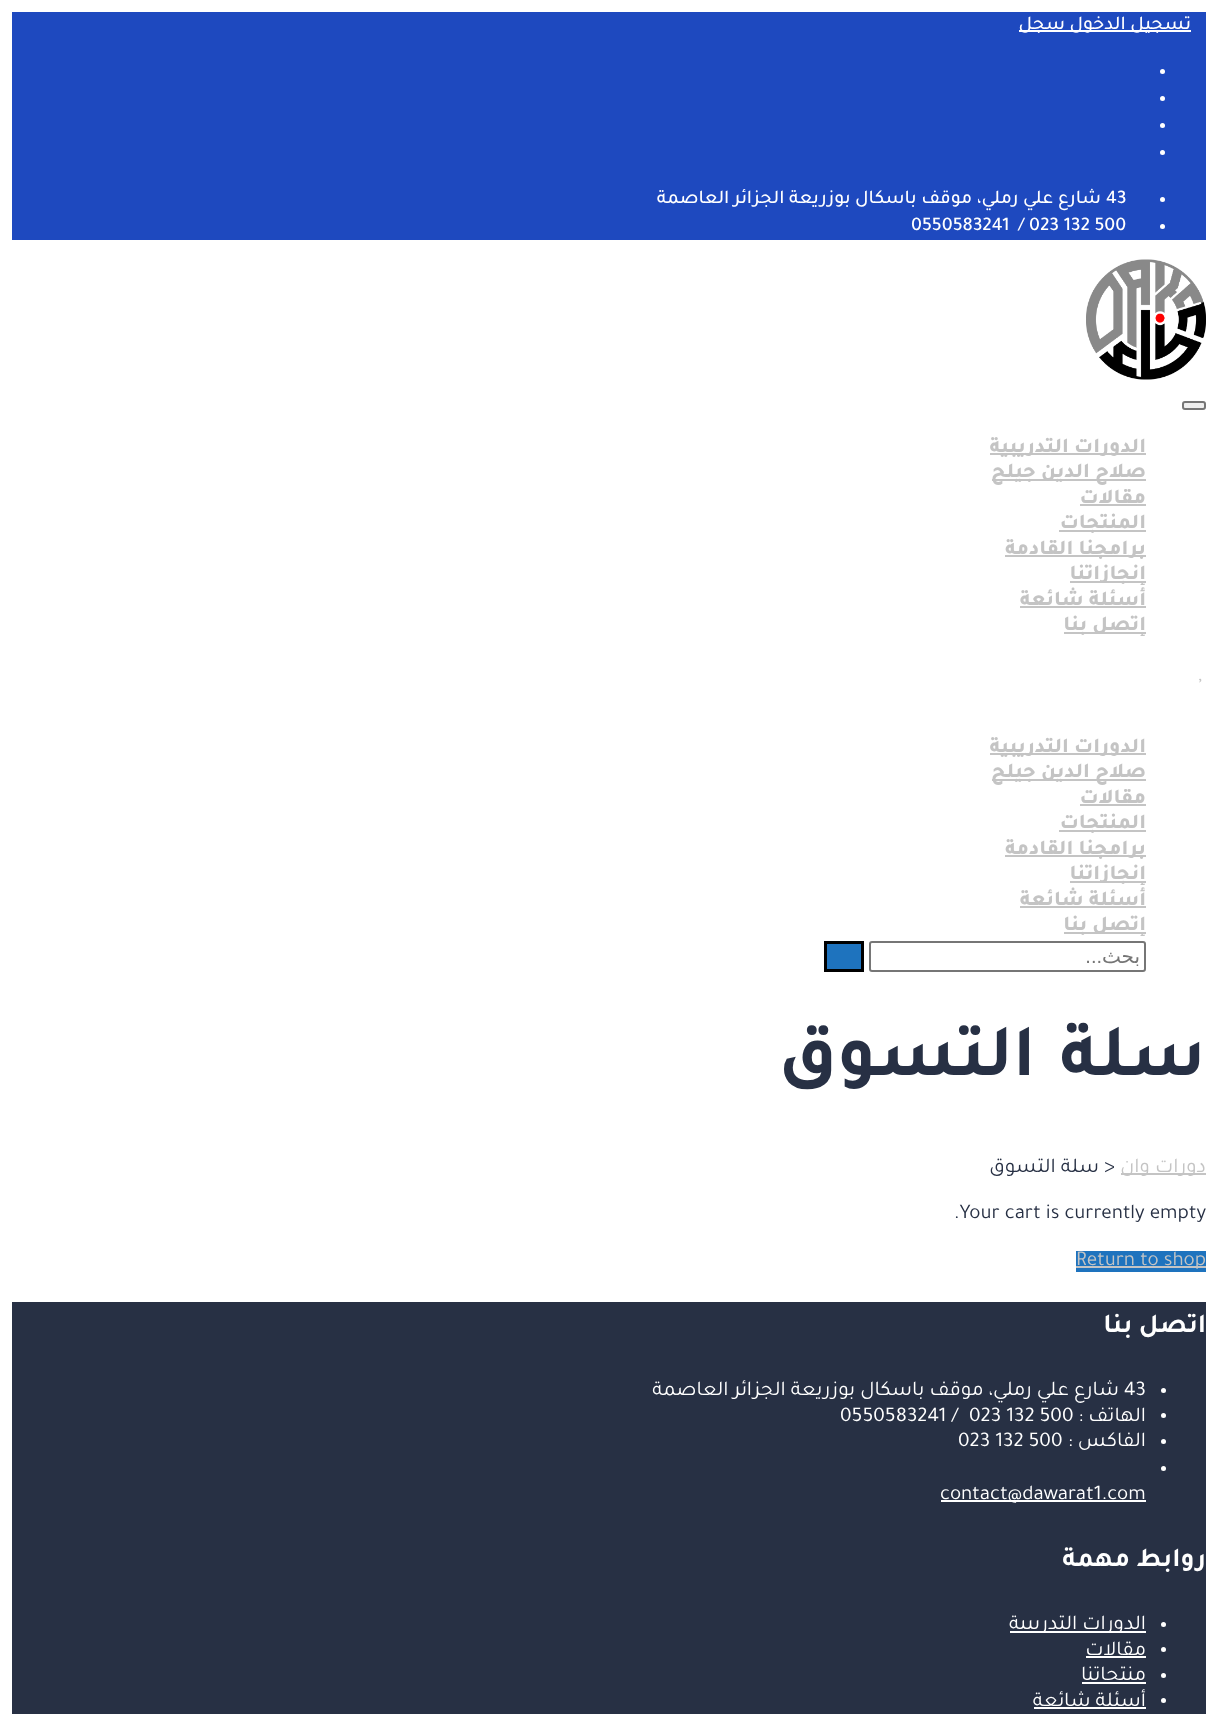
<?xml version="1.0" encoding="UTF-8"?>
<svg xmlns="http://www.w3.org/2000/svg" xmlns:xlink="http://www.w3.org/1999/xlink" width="1218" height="1714">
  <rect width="100%" height="100%" fill="#ffffff" />
  <rect x="12" y="12" width="1194" height="228" fill="#1e49bf" />
  <rect x="1019" y="30" width="172" height="2" fill="#ffffff" />
  <circle cx="1162.5" cy="71.5" r="2.5" fill="#ffffff" />
  <circle cx="1162.5" cy="98.5" r="2.5" fill="#ffffff" />
  <circle cx="1162.5" cy="125.5" r="2.5" fill="#ffffff" />
  <circle cx="1162.5" cy="152.5" r="2.5" fill="#ffffff" />
  <circle cx="1162.5" cy="199.5" r="2.5" fill="#ffffff" />
  <circle cx="1162.5" cy="226.5" r="2.5" fill="#ffffff" />
  <image x="1086" y="259" width="120" height="121" xlink:href="image1.png" />
  <rect x="1183" y="402" width="22" height="7" rx="2" fill="#efefef" stroke="#767676" stroke-width="2" />
  <rect x="990" y="453" width="156" height="2" fill="#c4c4c4" />
  <rect x="992" y="479" width="154" height="2" fill="#c4c4c4" />
  <rect x="1080" y="504" width="66" height="2" fill="#c4c4c4" />
  <rect x="1059" y="530" width="87" height="2" fill="#c4c4c4" />
  <rect x="1005" y="555" width="141" height="2" fill="#c4c4c4" />
  <rect x="1070" y="581" width="76" height="2" fill="#c4c4c4" />
  <rect x="1020" y="606" width="126" height="2" fill="#c4c4c4" />
  <rect x="1064" y="632" width="82" height="2" fill="#c4c4c4" />
  <image x="1199" y="678" width="3" height="5" xlink:href="image2.png" />
  <rect x="990" y="753" width="156" height="2" fill="#c4c4c4" />
  <rect x="992" y="779" width="154" height="2" fill="#c4c4c4" />
  <rect x="1080" y="804" width="66" height="2" fill="#c4c4c4" />
  <rect x="1059" y="830" width="87" height="2" fill="#c4c4c4" />
  <rect x="1005" y="855" width="141" height="2" fill="#c4c4c4" />
  <rect x="1070" y="881" width="76" height="2" fill="#c4c4c4" />
  <rect x="1020" y="906" width="126" height="2" fill="#c4c4c4" />
  <rect x="1064" y="932" width="82" height="2" fill="#c4c4c4" />
  <rect x="870" y="942" width="275" height="29" rx="2" fill="none" stroke="#767676" stroke-width="2" />
  <rect x="825.5" y="942.5" width="37" height="28" fill="#1e73be" stroke="#000000" stroke-width="3" />
  <rect x="1121" y="1173" width="85" height="2" fill="#c4c4c4" />
  <rect x="1076" y="1251" width="130" height="21" fill="#1e73be" />
  <rect x="1076" y="1266" width="130" height="2" fill="#c4c4c4" />
  <rect x="12" y="1302" width="1194" height="412" fill="#273044" />
  <circle cx="1163.5" cy="1390.5" r="2.5" fill="#ffffff" />
  <circle cx="1163.5" cy="1415.5" r="2.5" fill="#ffffff" />
  <circle cx="1163.5" cy="1441.5" r="2.5" fill="#ffffff" />
  <circle cx="1163.5" cy="1468.5" r="2.5" fill="#ffffff" />
  <rect x="941" y="1500" width="205" height="2" fill="#ffffff" />
  <circle cx="1163.5" cy="1624.5" r="2.5" fill="#ffffff" />
  <rect x="1010" y="1631" width="136" height="2" fill="#ffffff" />
  <circle cx="1163.5" cy="1649.5" r="2.5" fill="#ffffff" />
  <rect x="1086" y="1656" width="60" height="2" fill="#ffffff" />
  <circle cx="1163.5" cy="1675.5" r="2.5" fill="#ffffff" />
  <rect x="1082" y="1682" width="64" height="2" fill="#ffffff" />
  <circle cx="1163.5" cy="1700.5" r="2.5" fill="#ffffff" />
  <rect x="1034" y="1707" width="112" height="2" fill="#ffffff" />
  <text x="1191" y="29" style="font-family: Tajawal; font-size: 19.5px; font-weight: 500; direction: rtl; fill: #ffffff">تسجيل الدخول</text>
  <text x="1065" y="29" style="font-family: Tajawal; font-size: 19.5px; font-weight: 500; direction: rtl; fill: #ffffff">سجل</text>
  <text x="1106" y="203" style="font-family: Tajawal; font-size: 19.5px; font-weight: 500; fill: #ffffff">43</text>
  <text x="1101" y="203" style="font-family: Tajawal; font-size: 19.5px; font-weight: 500; direction: rtl; fill: #ffffff">شارع علي رملي، موقف باسكال بوزريعة الجزائر العاصمة</text>
  <text x="1018" y="230" style="font-family: Tajawal; font-size: 19.5px; font-weight: 500; fill: #ffffff">/ 023 132 500</text>
  <text x="911" y="230" style="font-family: Tajawal; font-size: 19.5px; font-weight: 500; fill: #ffffff">0550583241</text>
  <text x="1146" y="452" style="font-family: Tajawal; font-size: 21px; font-weight: 800; direction: rtl; fill: #c4c4c4">الدورات التدريبية</text>
  <text x="1146" y="477" style="font-family: Tajawal; font-size: 21px; font-weight: 800; direction: rtl; fill: #c4c4c4">صلاح الدين جيلح</text>
  <text x="1146" y="503" style="font-family: Tajawal; font-size: 21px; font-weight: 800; direction: rtl; fill: #c4c4c4">مقالات</text>
  <text x="1146" y="528" style="font-family: Tajawal; font-size: 21px; font-weight: 800; direction: rtl; fill: #c4c4c4">المنتجات</text>
  <text x="1146" y="554" style="font-family: Tajawal; font-size: 21px; font-weight: 800; direction: rtl; fill: #c4c4c4">برامجنا القادمة</text>
  <text x="1146" y="579" style="font-family: Tajawal; font-size: 21px; font-weight: 800; direction: rtl; fill: #c4c4c4">إنجازاتنا</text>
  <text x="1146" y="605" style="font-family: Tajawal; font-size: 21px; font-weight: 800; direction: rtl; fill: #c4c4c4">أسئلة شائعة</text>
  <text x="1146" y="630" style="font-family: Tajawal; font-size: 21px; font-weight: 800; direction: rtl; fill: #c4c4c4">إتصل بنا</text>
  <text x="1146" y="752" style="font-family: Tajawal; font-size: 21px; font-weight: 800; direction: rtl; fill: #c4c4c4">الدورات التدريبية</text>
  <text x="1146" y="777" style="font-family: Tajawal; font-size: 21px; font-weight: 800; direction: rtl; fill: #c4c4c4">صلاح الدين جيلح</text>
  <text x="1146" y="803" style="font-family: Tajawal; font-size: 21px; font-weight: 800; direction: rtl; fill: #c4c4c4">مقالات</text>
  <text x="1146" y="828" style="font-family: Tajawal; font-size: 21px; font-weight: 800; direction: rtl; fill: #c4c4c4">المنتجات</text>
  <text x="1146" y="854" style="font-family: Tajawal; font-size: 21px; font-weight: 800; direction: rtl; fill: #c4c4c4">برامجنا القادمة</text>
  <text x="1146" y="879" style="font-family: Tajawal; font-size: 21px; font-weight: 800; direction: rtl; fill: #c4c4c4">إنجازاتنا</text>
  <text x="1146" y="905" style="font-family: Tajawal; font-size: 21px; font-weight: 800; direction: rtl; fill: #c4c4c4">أسئلة شائعة</text>
  <text x="1146" y="930" style="font-family: Tajawal; font-size: 21px; font-weight: 800; direction: rtl; fill: #c4c4c4">إتصل بنا</text>
  <text x="1140" y="963" style="font-family: DejaVu Sans; font-size: 20px; direction: rtl; fill: #757575">بحث</text>
  <text x="1102" y="963" style="font-family: Liberation Sans; font-size: 20px; direction: rtl; fill: #757575">...</text>
  <text x="1206" y="1075" word-spacing="6" style="font-family: Tajawal; font-size: 75px; font-weight: bold; letter-spacing: -0.5px; direction: rtl; fill: #273044">سلة التسوق</text>
  <text x="1206" y="1172" style="font-family: Tajawal; font-size: 21px; direction: rtl; fill: #c4c4c4">دورات وان</text>
  <text x="1104" y="1172" style="font-family: Tajawal; font-size: 21px; fill: #273044">&gt;</text>
  <text x="1099" y="1172" style="font-family: Tajawal; font-size: 21px; direction: rtl; fill: #273044">سلة التسوق</text>
  <text x="954" y="1218" style="font-family: Tajawal; font-size: 21px; fill: #273044">.Your cart is currently empty</text>
  <text x="1076" y="1265" style="font-family: Tajawal; font-size: 21px; fill: #c4c4c4">Return to shop</text>
  <text x="1206" y="1332" style="font-family: Tajawal; font-size: 27px; font-weight: bold; direction: rtl; fill: #ffffff">اتصل بنا</text>
  <text x="1124" y="1395" style="font-family: Tajawal; font-size: 21px; fill: #ffffff">43</text>
  <text x="1119" y="1395" style="font-family: Tajawal; font-size: 21px; direction: rtl; fill: #ffffff">شارع علي رملي، موقف باسكال بوزريعة الجزائر العاصمة</text>
  <text x="1146" y="1421" style="font-family: Tajawal; font-size: 21px; direction: rtl; fill: #ffffff">الهاتف :</text>
  <text x="969" y="1421" style="font-family: Tajawal; font-size: 21px; fill: #ffffff">023 132 500</text>
  <text x="840" y="1421" style="font-family: Tajawal; font-size: 21px; fill: #ffffff">0550583241 /</text>
  <text x="1146" y="1446" style="font-family: Tajawal; font-size: 21px; direction: rtl; fill: #ffffff">الفاكس :</text>
  <text x="958" y="1446" style="font-family: Tajawal; font-size: 21px; fill: #ffffff">023 132 500</text>
  <text x="940" y="1499" style="font-family: Tajawal; font-size: 21px; fill: #ffffff">contact@dawarat1.com</text>
  <text x="1206" y="1566" style="font-family: Tajawal; font-size: 27px; font-weight: bold; direction: rtl; fill: #ffffff">روابط مهمة</text>
  <text x="1146" y="1629" style="font-family: Tajawal; font-size: 21px; direction: rtl; fill: #ffffff">الدورات التدريبية</text>
  <text x="1146" y="1655" style="font-family: Tajawal; font-size: 21px; direction: rtl; fill: #ffffff">مقالات</text>
  <text x="1146" y="1680" style="font-family: Tajawal; font-size: 21px; direction: rtl; fill: #ffffff">منتجاتنا</text>
  <text x="1146" y="1706" style="font-family: Tajawal; font-size: 21px; direction: rtl; fill: #ffffff">أسئلة شائعة</text>
</svg>
